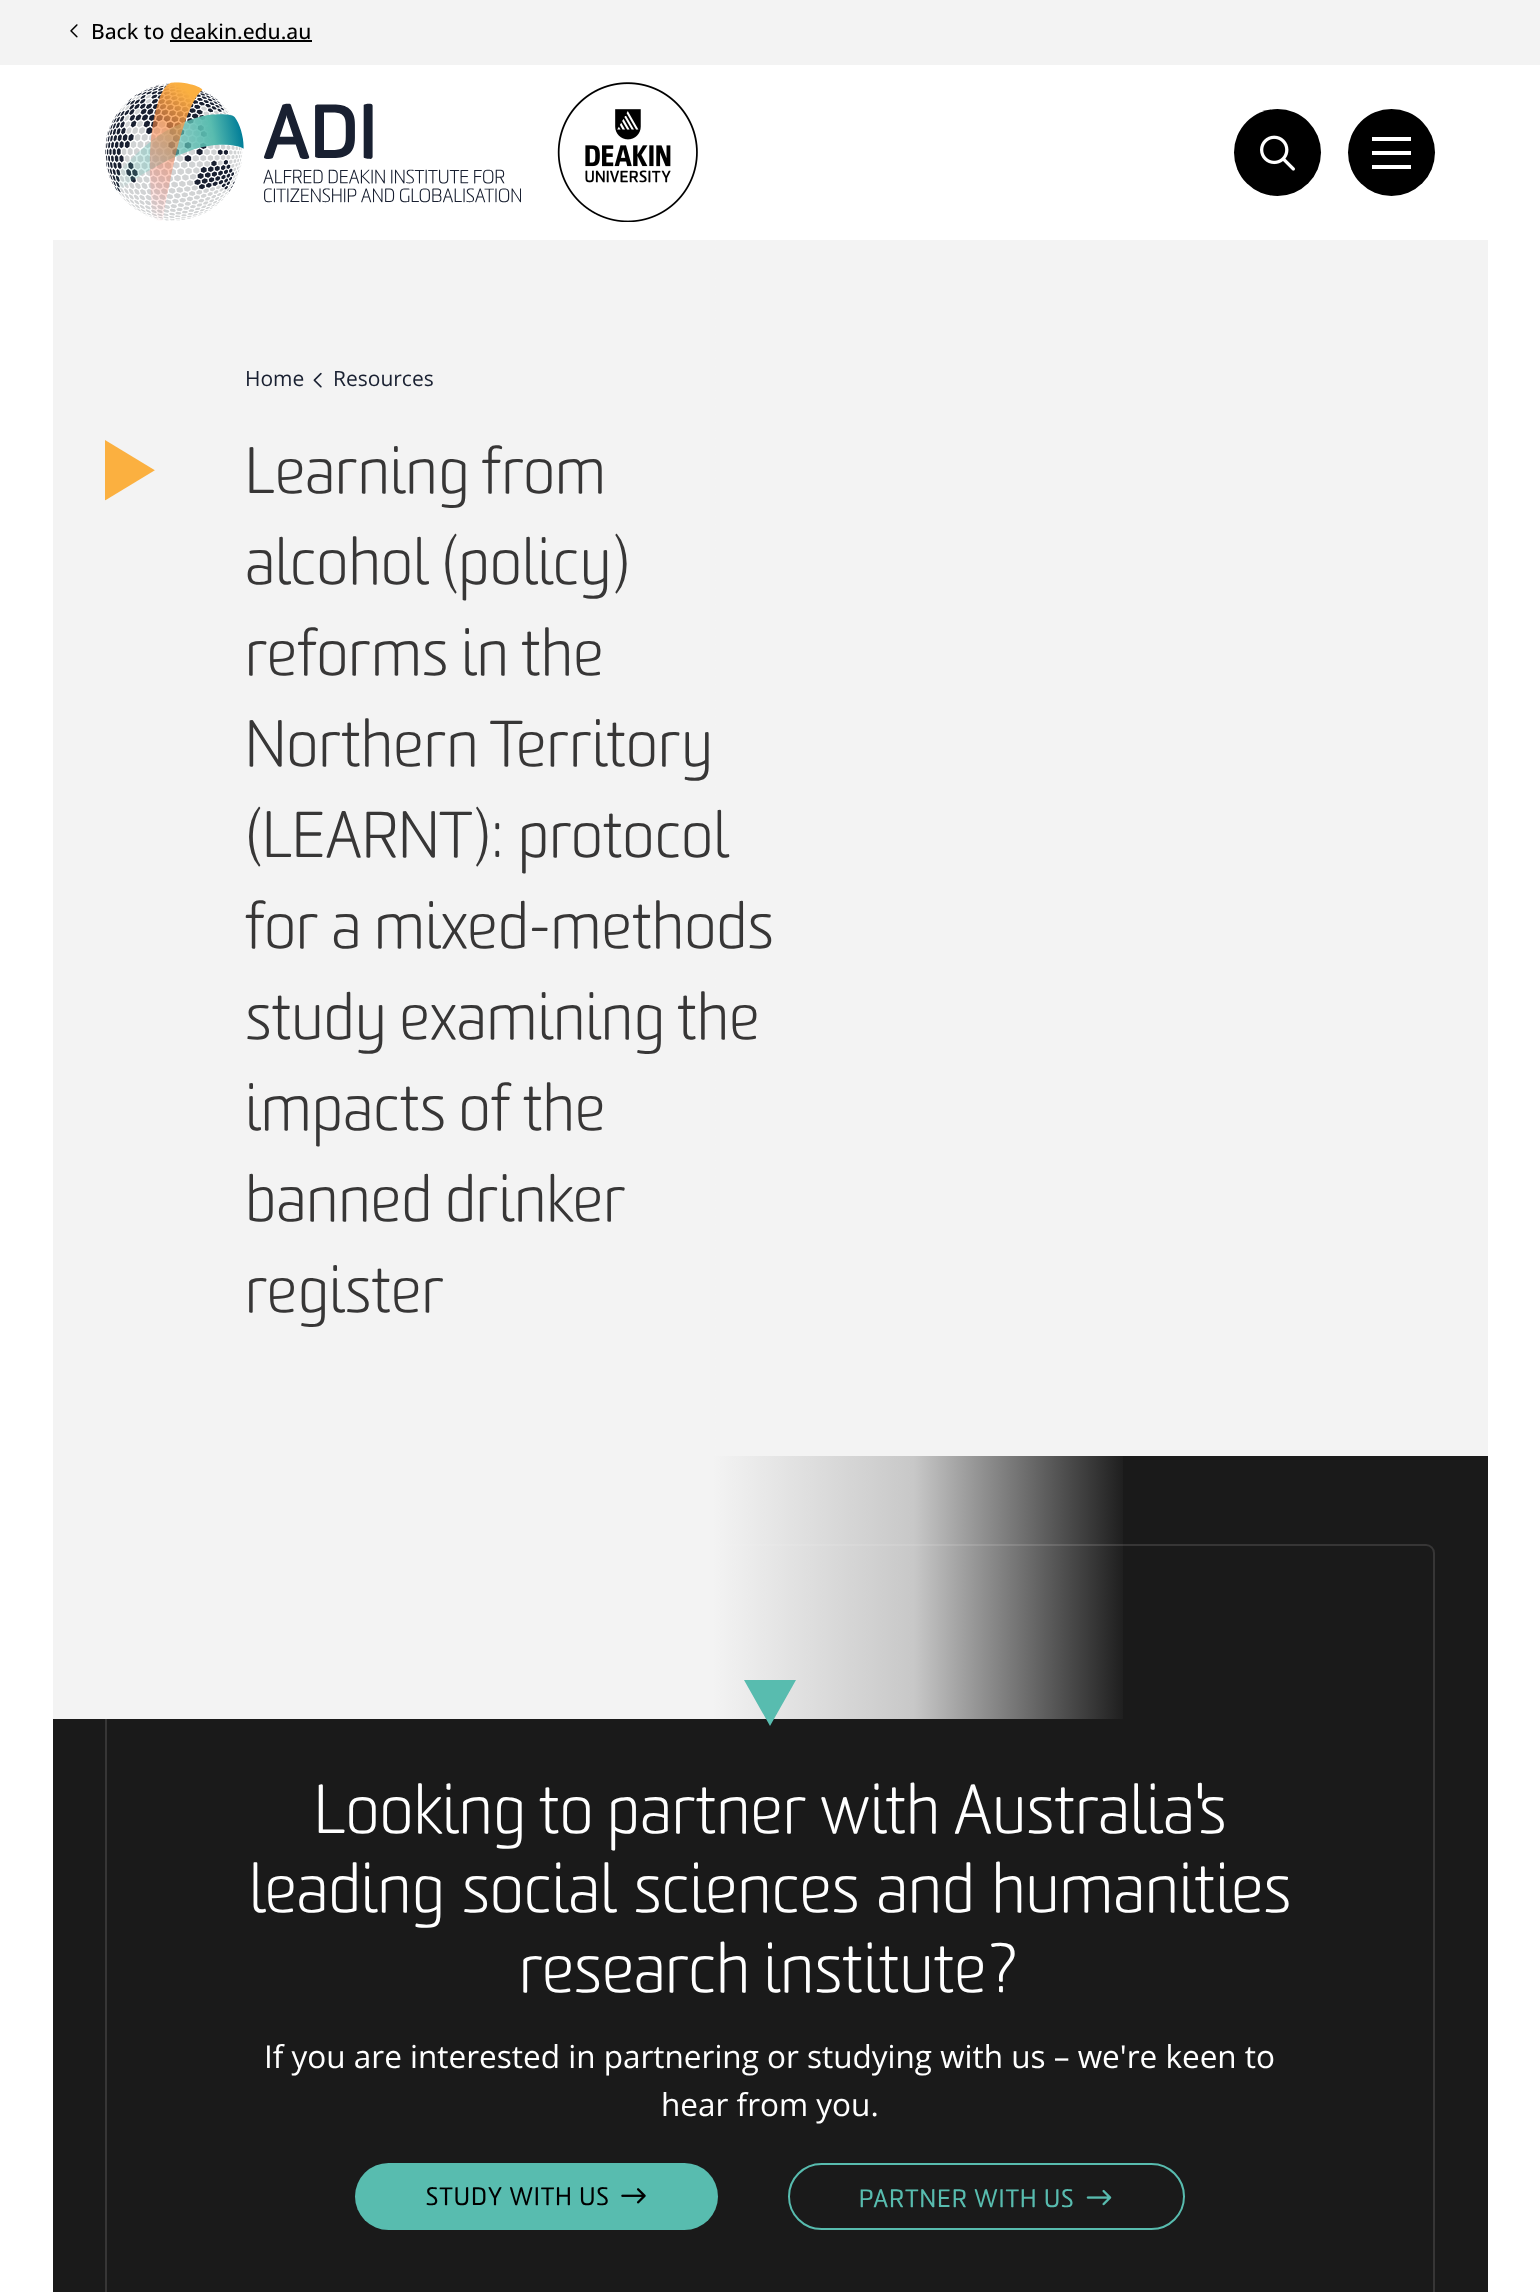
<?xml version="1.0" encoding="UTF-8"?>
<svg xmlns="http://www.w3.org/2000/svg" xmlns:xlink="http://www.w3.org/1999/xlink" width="1540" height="2292">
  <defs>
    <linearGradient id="g1" gradientUnits="userSpaceOnUse" x1="53" y1="979" x2="1488" y2="979"><stop offset="0.46" stop-color="#f3f3f3" /><stop offset="0.6" stop-color="#f3f3f3" stop-opacity="0.8" /><stop offset="0.75" stop-color="#f3f3f3" stop-opacity="0" /></linearGradient>
  </defs>
  <rect width="100%" height="100%" fill="#ffffff" />
  <rect width="1540" height="65" fill="#f3f3f3" />
  <image x="70" y="24" width="8" height="14" xlink:href="image1.png" />
  <rect x="170" y="40" width="142" height="2" fill="#000000" />
  <image x="105" y="82" width="416" height="139" xlink:href="image2.png" />
  <image x="557" y="82" width="141" height="140" xlink:href="image3.png" />
  <circle cx="1277.5" cy="152.5" r="43.5" fill="#000000" />
  <image x="1260" y="135" width="35" height="36" xlink:href="image4.png" />
  <circle cx="1391.5" cy="152.5" r="43.5" fill="#000000" />
  <rect x="1372" y="137" width="39" height="4" fill="#ffffff" />
  <rect x="1372" y="151" width="39" height="4" fill="#ffffff" />
  <rect x="1372" y="165" width="39" height="4" fill="#ffffff" />
  <rect x="719" y="240" width="769" height="1216" fill="#f3f3f3" />
  <rect x="53" y="1456" width="1435" height="836" fill="#1a1a1a" />
  <rect x="106" y="1545" width="1328" height="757" rx="8" fill="none" stroke="#373636" stroke-width="2" />
  <rect x="53" y="240" width="1070" height="1479" fill="url(#g1)" />
  <image x="313" y="372" width="9" height="16" xlink:href="image5.png" />
  <image x="105" y="440" width="50" height="61" xlink:href="image6.png" />
  <path d="M 796 1680 l -26 46 l 26 -46 l -26 46 l -26 -46 z" fill="#58bcaf" />
  <rect x="355" y="2163" width="363" height="67" rx="33.5" fill="#58bcaf" />
  <image x="621" y="2188" width="25" height="16" xlink:href="image7.png" />
  <rect x="789" y="2164" width="395" height="65" rx="32.5" fill="none" stroke="#58bcaf" stroke-width="2" />
  <image x="1086" y="2189" width="26" height="17" xlink:href="image8.png" />
  <text x="91" y="39" style="font-family: Open Sans; font-size: 21px; font-weight: 500; fill: #000000">Back to deakin.edu.au</text>
  <text x="245" y="386" style="font-family: Open Sans; font-size: 21px; fill: #192031">Home</text>
  <text x="333" y="386" style="font-family: Open Sans; font-size: 21px; fill: #192031">Resources</text>
  <text x="245" y="493" style="font-family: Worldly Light; font-size: 63px; font-weight: 300; fill: #373636">Learning from</text>
  <text x="245" y="584" style="font-family: Worldly Light; font-size: 63px; font-weight: 300; fill: #373636">alcohol (policy)</text>
  <text x="245" y="675" style="font-family: Worldly Light; font-size: 63px; font-weight: 300; fill: #373636">reforms in the</text>
  <text x="245" y="766" style="font-family: Worldly Light; font-size: 63px; font-weight: 300; fill: #373636">Northern Territory</text>
  <text x="245" y="857" style="font-family: Worldly Light; font-size: 63px; font-weight: 300; fill: #373636">(LEARNT): protocol</text>
  <text x="245" y="948" style="font-family: Worldly Light; font-size: 63px; font-weight: 300; fill: #373636">for a mixed-methods</text>
  <text x="245" y="1039" style="font-family: Worldly Light; font-size: 63px; font-weight: 300; fill: #373636">study examining the</text>
  <text x="245" y="1130" style="font-family: Worldly Light; font-size: 63px; font-weight: 300; fill: #373636">impacts of the</text>
  <text x="245" y="1221" style="font-family: Worldly Light; font-size: 63px; font-weight: 300; fill: #373636">banned drinker</text>
  <text x="245" y="1312" style="font-family: Worldly Light; font-size: 63px; font-weight: 300; fill: #373636">register</text>
  <text x="314" y="1833" style="font-family: Worldly Light; font-size: 66.5px; font-weight: 300; fill: #ffffff">Looking to partner with Australia's</text>
  <text x="249" y="1912" word-spacing="3.5" style="font-family: Worldly Light; font-size: 66.5px; font-weight: 300; fill: #ffffff">leading social sciences and humanities</text>
  <text x="519" y="1992" style="font-family: Worldly Light; font-size: 66.5px; font-weight: 300; fill: #ffffff">research institute?</text>
  <text x="264" y="2068" style="font-family: Open Sans; font-size: 31.5px; fill: #ffffff">If you are interested in partnering or studying with us – we're keen to</text>
  <text x="661" y="2116" style="font-family: Open Sans; font-size: 31.5px; fill: #ffffff">hear from you.</text>
  <text x="426" y="2205" style="font-family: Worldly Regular; font-size: 24.5px; letter-spacing: 1.25px; fill: #000000">STUDY WITH US</text>
  <text x="859" y="2207" style="font-family: Worldly Regular; font-size: 24.5px; letter-spacing: 1.25px; fill: #58bcaf">PARTNER WITH US</text>
</svg>
